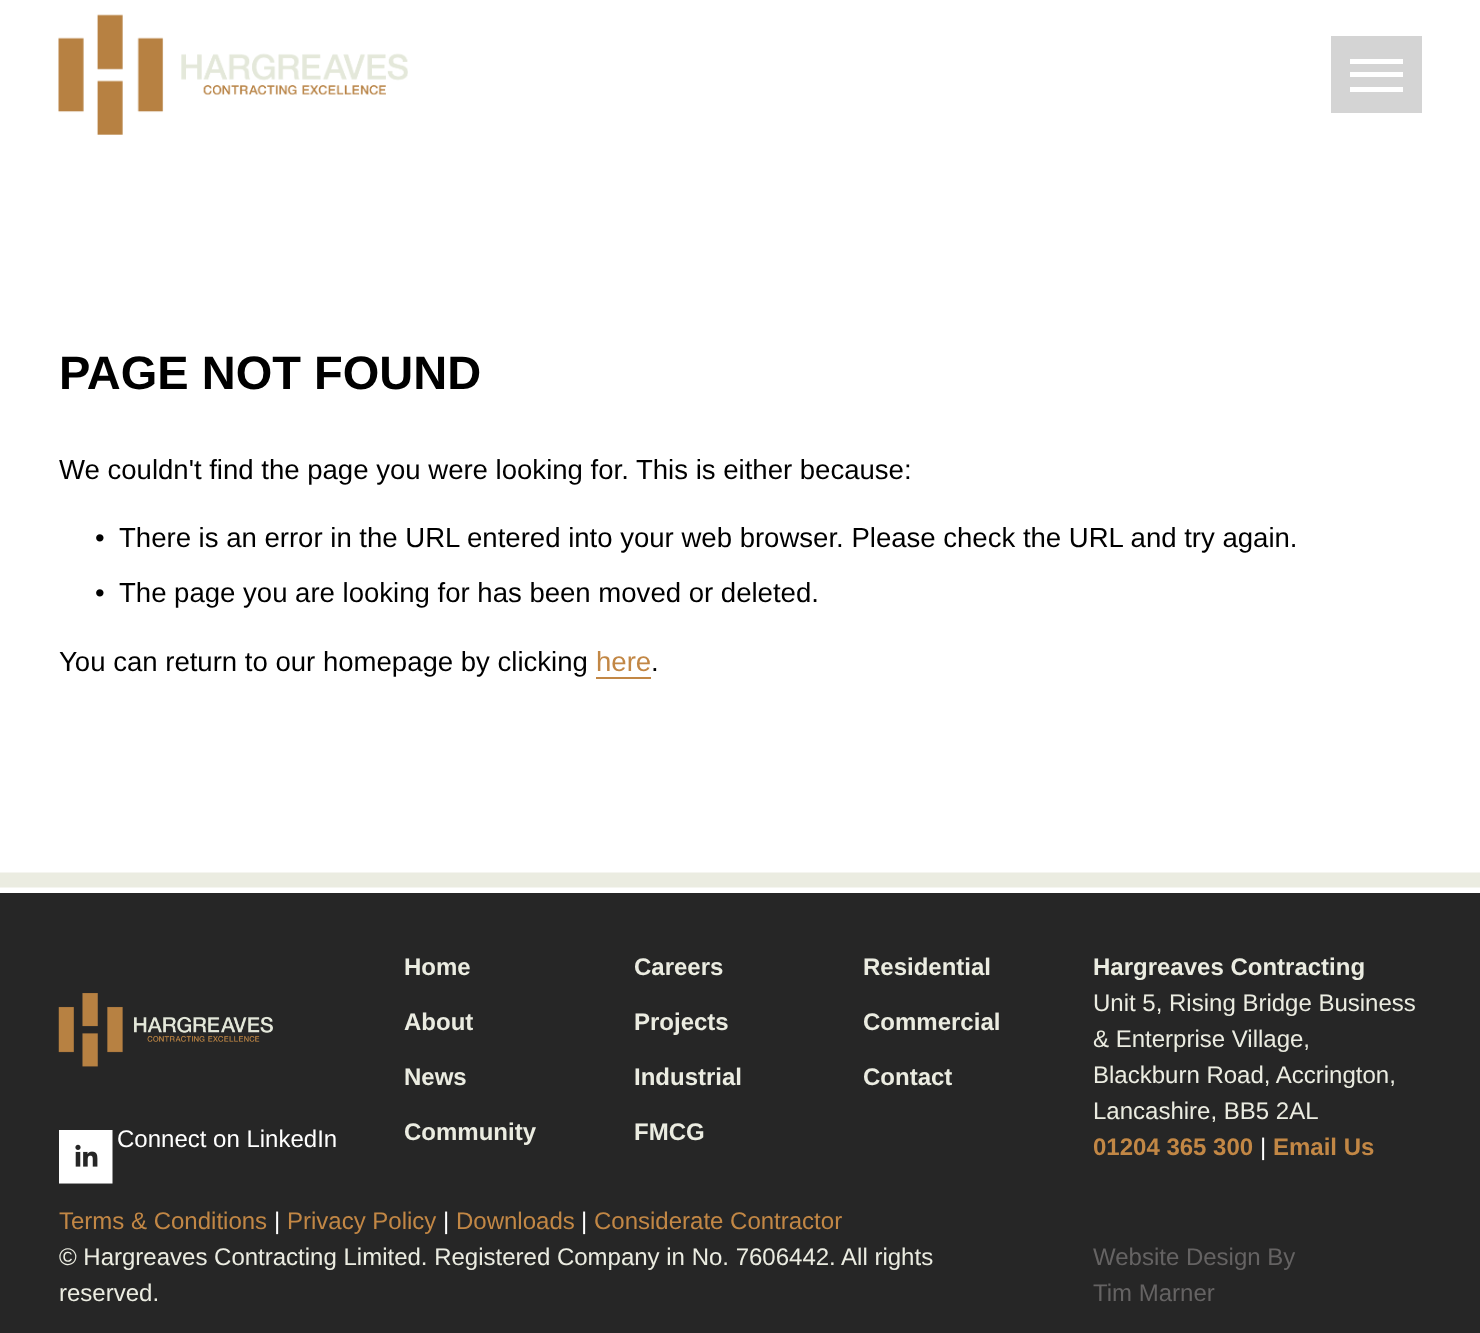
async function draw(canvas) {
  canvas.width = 1480;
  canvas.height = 1333;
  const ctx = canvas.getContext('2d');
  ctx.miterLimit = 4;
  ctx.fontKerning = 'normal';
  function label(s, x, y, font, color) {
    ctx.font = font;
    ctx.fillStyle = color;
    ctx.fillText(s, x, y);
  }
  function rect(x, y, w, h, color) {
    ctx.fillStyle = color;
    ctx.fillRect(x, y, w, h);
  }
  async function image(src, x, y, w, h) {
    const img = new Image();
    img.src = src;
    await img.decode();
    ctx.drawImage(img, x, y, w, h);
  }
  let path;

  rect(0, 0, 1480, 1333, '#fff');
  await image('assets/img1.png', 58, 14, 350, 121);
  rect(1331, 36, 91, 77, '#d4d4d4');
  rect(1350, 59, 53, 5, '#fff');
  rect(1350, 72, 53, 5, '#fff');
  rect(1350, 87, 53, 5, '#fff');
  label('PAGE NOT FOUND', 59, 389, 'bold 47px Liberation Sans', '#000');
  label('We couldn\'t find the page you were looking for. This is either because:', 59, 479, '27.55px Liberation Sans', '#000');
  label('•', 95, 547, '27.55px Liberation Sans', '#000');
  label('There is an error in the URL entered into your web browser. Please check the URL and try again.', 119, 547, '27.55px Liberation Sans', '#000');
  label('•', 95, 602, '27.55px Liberation Sans', '#000');
  label('The page you are looking for has been moved or deleted.', 119, 602, '27.55px Liberation Sans', '#000');
  label('You can return to our homepage by clicking', 59, 671, '27.55px Liberation Sans', '#000');
  label('here', 596, 671, '27.55px Liberation Sans', '#c28745');
  rect(596, 677, 55, 2, '#c28745');
  label('.', 651, 671, '27.55px Liberation Sans', '#000');
  path = new Path2D('M-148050 440V1320M0 880H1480.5');
  ctx.strokeStyle = '#ebece1';
  ctx.lineWidth = 15;
  ctx.lineCap = 'square';
  ctx.stroke(path);
  rect(0, 893, 1480, 440, '#262626');
  label('Home', 404, 975, 'bold 24px Liberation Sans', '#ebece1');
  label('Careers', 634, 975, 'bold 24px Liberation Sans', '#ebece1');
  label('Residential', 863, 975, 'bold 24px Liberation Sans', '#ebece1');
  label('Hargreaves Contracting', 1093, 975, 'bold 24px Liberation Sans', '#ebece1');
  label('Unit 5, Rising Bridge Business', 1093, 1011, '24px Liberation Sans', '#ebece1');
  label('& Enterprise Village,', 1093, 1047, '24px Liberation Sans', '#ebece1');
  label('Blackburn Road, Accrington,', 1093, 1083, '24px Liberation Sans', '#ebece1');
  label('Lancashire, BB5 2AL', 1093, 1119, '24px Liberation Sans', '#ebece1');
  label('01204 365 300', 1093, 1155, 'bold 24px Liberation Sans', '#c28745');
  label('|', 1260, 1155, '24px Liberation Sans', '#fff');
  label('Email Us', 1273, 1155, 'bold 24px Liberation Sans', '#c28745');
  await image('assets/img2.png', 58, 993, 215, 74);
  label('About', 404, 1030, 'bold 24px Liberation Sans', '#ebece1');
  label('Projects', 634, 1030, 'bold 24px Liberation Sans', '#ebece1');
  label('Commercial', 863, 1030, 'bold 24px Liberation Sans', '#ebece1');
  label('News', 404, 1085, 'bold 24px Liberation Sans', '#ebece1');
  label('Industrial', 634, 1085, 'bold 24px Liberation Sans', '#ebece1');
  label('Contact', 863, 1085, 'bold 24px Liberation Sans', '#ebece1');
  await image('assets/img3.png', 59, 1130, 54, 54);
  label('Connect on LinkedIn', 117, 1147, '24px Liberation Sans', '#fff');
  label('Community', 404, 1140, 'bold 24px Liberation Sans', '#ebece1');
  label('FMCG', 634, 1140, 'bold 24px Liberation Sans', '#ebece1');
  label('Terms & Conditions', 59, 1229, '24px Liberation Sans', '#c28745');
  label('|', 274, 1229, '24px Liberation Sans', '#fff');
  label('Privacy Policy', 287, 1229, '24px Liberation Sans', '#c28745');
  label('|', 443, 1229, '24px Liberation Sans', '#fff');
  label('Downloads', 456, 1229, '24px Liberation Sans', '#c28745');
  label('|', 581, 1229, '24px Liberation Sans', '#fff');
  label('Considerate Contractor', 594, 1229, '24px Liberation Sans', '#c28745');
  label('© Hargreaves Contracting Limited. Registered Company in No. 7606442. All rights', 59, 1265, '24px Liberation Sans', '#ebece1');
  label('reserved.', 59, 1301, '24px Liberation Sans', '#ebece1');
  label('Website Design By', 1093, 1265, '24px Liberation Sans', '#656363');
  label('Tim Marner', 1093, 1301, '24px Liberation Sans', '#656363');
}

draw(document.querySelector('canvas'));
